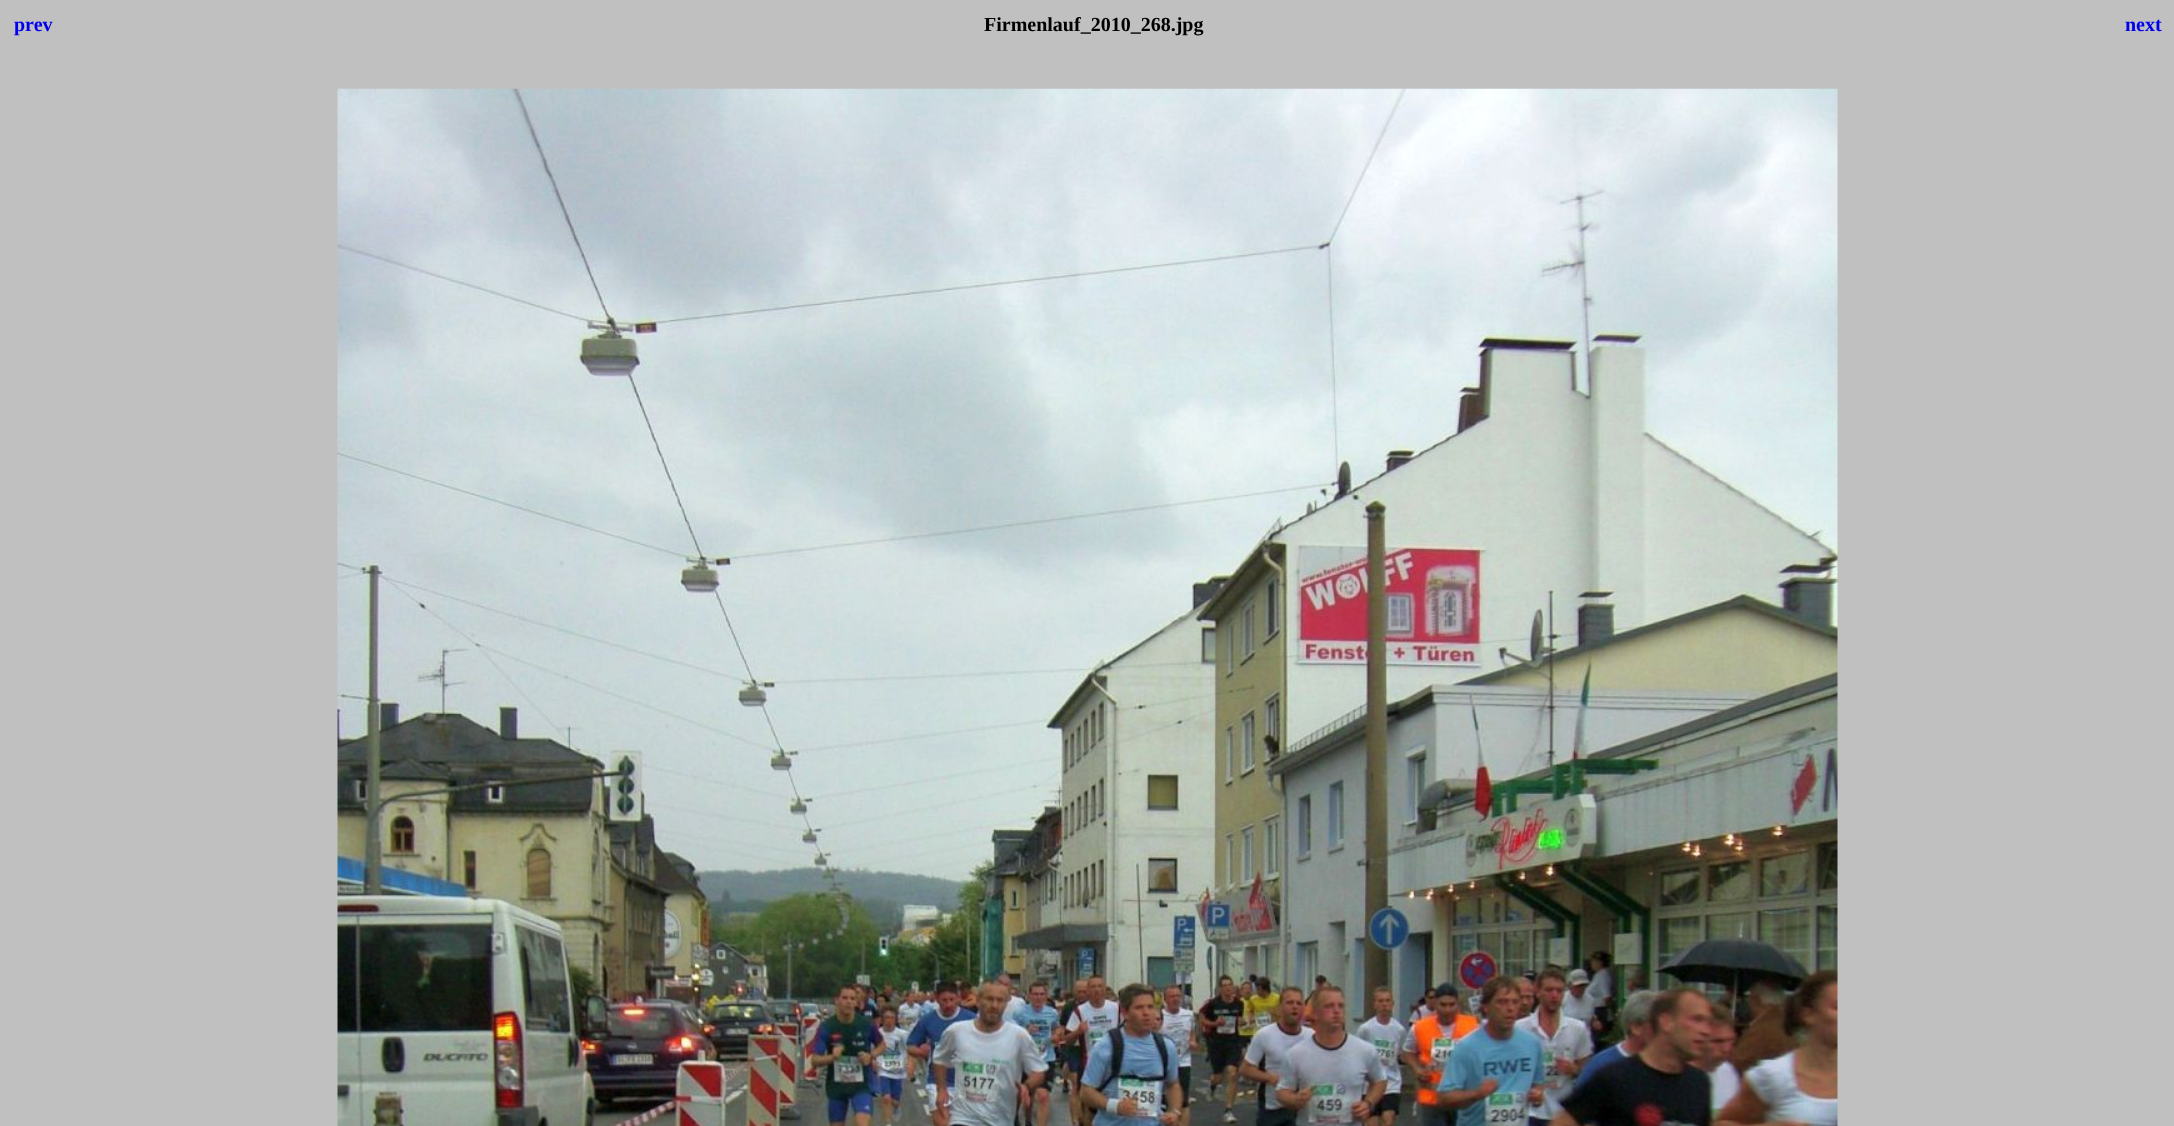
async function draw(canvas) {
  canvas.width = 2174;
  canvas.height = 1126;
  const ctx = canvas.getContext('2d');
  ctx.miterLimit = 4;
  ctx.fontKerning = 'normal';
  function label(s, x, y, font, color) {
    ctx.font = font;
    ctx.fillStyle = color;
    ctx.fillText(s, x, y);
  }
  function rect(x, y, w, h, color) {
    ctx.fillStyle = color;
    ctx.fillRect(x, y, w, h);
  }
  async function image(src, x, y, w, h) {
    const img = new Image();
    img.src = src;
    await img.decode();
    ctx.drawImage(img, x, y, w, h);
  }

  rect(0, 0, 2174, 1126, '#c0c0c0');
  label('prev', 14, 31, 'bold 20px Liberation Serif', '#00e');
  label('Firmenlauf_2010_268.jpg', 984, 31, 'bold 20px Liberation Serif', '#000');
  label('next', 2125, 31, 'bold 20px Liberation Serif', '#00e');
  await image('assets/img1.png', 337, 88, 1501, 1038);
}

draw(document.querySelector('canvas'));
